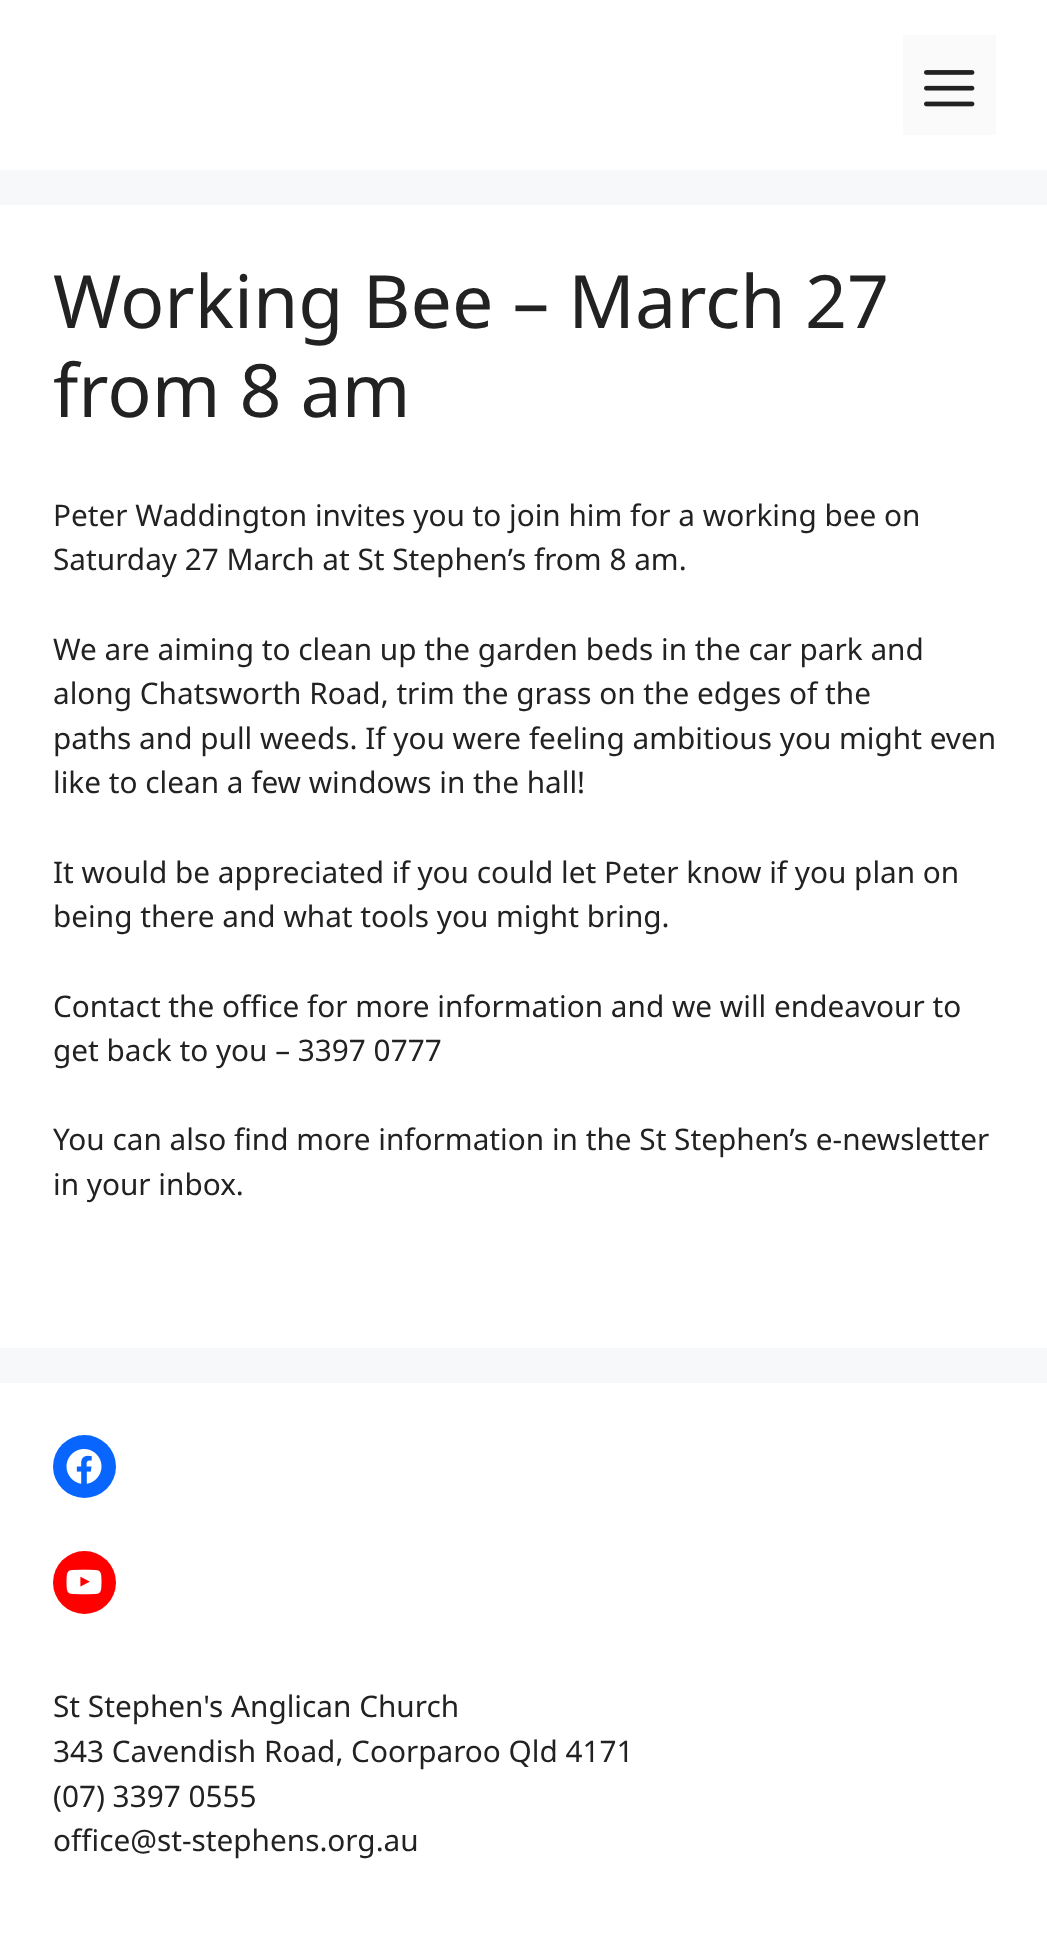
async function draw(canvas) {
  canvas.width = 1047;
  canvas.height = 1951;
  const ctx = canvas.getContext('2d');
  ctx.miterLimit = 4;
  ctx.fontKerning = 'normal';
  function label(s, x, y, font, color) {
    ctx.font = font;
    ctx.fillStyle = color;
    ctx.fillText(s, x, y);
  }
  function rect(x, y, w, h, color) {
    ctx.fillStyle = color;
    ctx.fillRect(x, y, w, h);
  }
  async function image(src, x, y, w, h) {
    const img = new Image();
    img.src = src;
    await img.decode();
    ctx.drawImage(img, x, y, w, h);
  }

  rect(0, 0, 1047, 1951, '#f7f8f9');
  rect(0, 0, 1047, 170, '#fff');
  rect(903, 35, 93, 100, '#fafafa');
  await image('assets/img1.png', 924, 70, 51, 37);
  rect(0, 205, 1047, 1143, '#fff');
  label('Working Bee – March 27', 53, 328, '73.5px Noto Sans', '#222');
  label('from 8 am', 53, 417, '73.5px Noto Sans', '#222');
  label('Peter Waddington invites you to join him for a working bee on', 53, 526, '29.75px Noto Sans', '#222');
  label('Saturday 27 March at St Stephen’s from 8 am.', 53, 570, '29.75px Noto Sans', '#222');
  label('We are aiming to clean up the garden beds in the car park and', 53, 660, '29.75px Noto Sans', '#222');
  label('along Chatsworth Road, trim the grass on the edges of the', 53, 704, '29.75px Noto Sans', '#222');
  label('paths and pull weeds. If you were feeling ambitious you might even', 53, 749, '29.75px Noto Sans', '#222');
  label('like to clean a few windows in the hall!', 53, 793, '29.75px Noto Sans', '#222');
  label('It would be appreciated if you could let Peter know if you plan on', 53, 883, '29.75px Noto Sans', '#222');
  label('being there and what tools you might bring.', 53, 927, '29.75px Noto Sans', '#222');
  label('Contact the office for more information and we will endeavour to', 53, 1017, '29.75px Noto Sans', '#222');
  label('get back to you – 3397 0777', 53, 1061, '29.75px Noto Sans', '#222');
  label('You can also find more information in the St Stephen’s e-newsletter', 53, 1150, '29.75px Noto Sans', '#222');
  label('in your inbox.', 53, 1195, '29.75px Noto Sans', '#222');
  rect(0, 1383, 1047, 568, '#fff');
  ctx.fillStyle = '#0866ff';
  ctx.beginPath();
  ctx.arc(84.5, 1466.5, 31.5, 0, 2 * Math.PI);
  ctx.fill();
  await image('assets/img2.png', 66, 1449, 36, 35);
  ctx.fillStyle = '#f00';
  ctx.beginPath();
  ctx.arc(84.5, 1582.5, 31.5, 0, 2 * Math.PI);
  ctx.fill();
  await image('assets/img3.png', 66, 1569, 36, 26);
  label('St Stephen\'s Anglican Church', 53, 1717, '29.75px Noto Sans', '#222');
  label('343 Cavendish Road, Coorparoo Qld 4171', 53, 1762, '29.75px Noto Sans', '#222');
  label('(07) 3397 0555', 53, 1807, '29.75px Noto Sans', '#222');
  label('office@st-stephens.org.au', 53, 1851, '29.75px Noto Sans', '#222');
}

draw(document.querySelector('canvas'));
